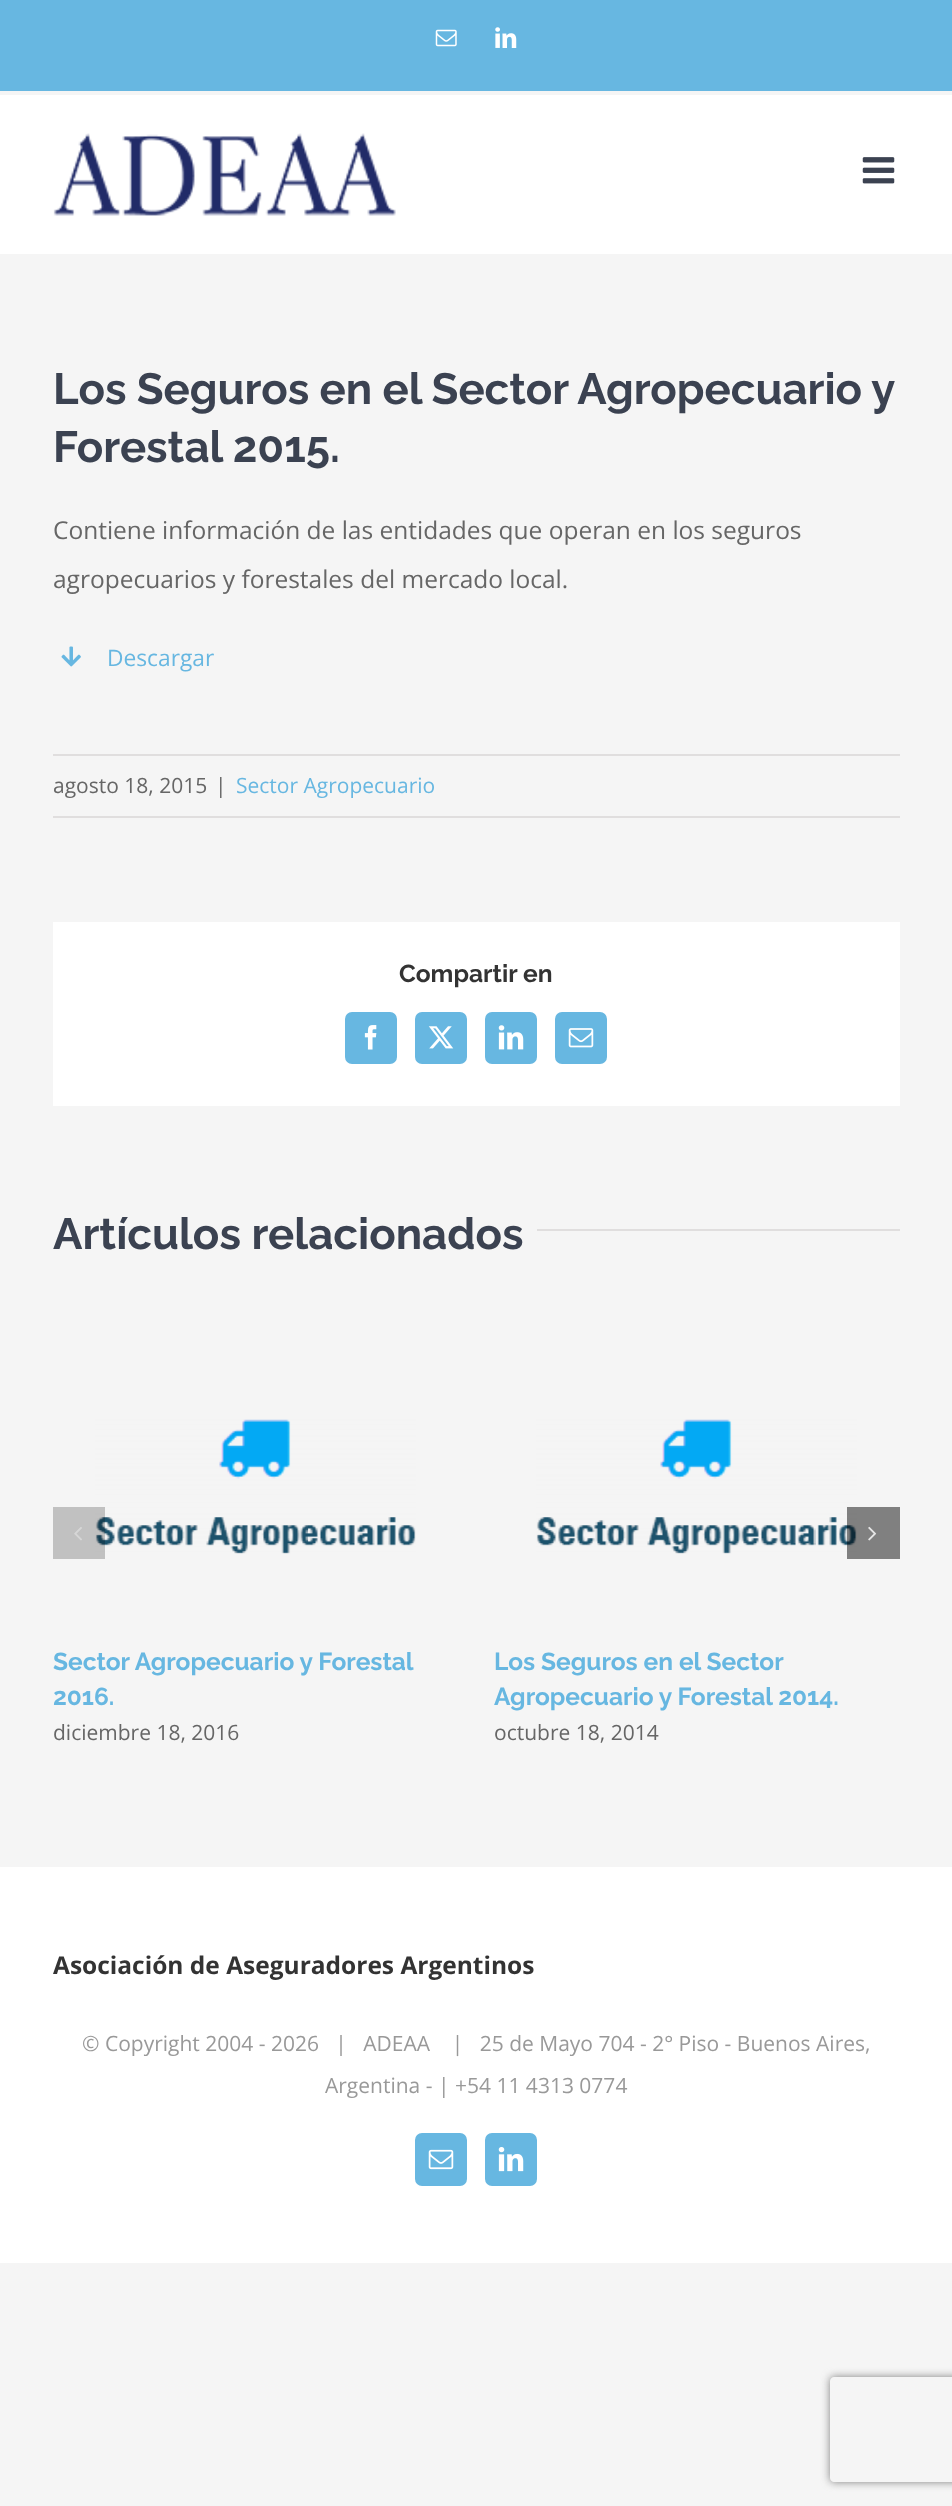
async function draw(canvas) {
  canvas.width = 952;
  canvas.height = 2506;
  const ctx = canvas.getContext('2d');
  ctx.miterLimit = 4;
  ctx.fontKerning = 'normal';
  function label(s, x, y, font, color) {
    ctx.font = font;
    ctx.fillStyle = color;
    ctx.fillText(s, x, y);
  }
  function rect(x, y, w, h, color) {
    ctx.fillStyle = color;
    ctx.fillRect(x, y, w, h);
  }
  async function image(src, x, y, w, h) {
    const img = new Image();
    img.src = src;
    await img.decode();
    ctx.drawImage(img, x, y, w, h);
  }
  let path;

  rect(0, 0, 952, 2506, '#f5f5f5');
  rect(0, 0, 952, 91, '#67b7e1');
  await image('assets/img1.png', 435, 29, 22, 18);
  await image('assets/img2.png', 495, 27, 22, 21);
  rect(0, 95, 952, 159, '#fff');
  await image('assets/img3.png', 53, 133, 343, 83);
  await image('assets/img4.png', 862, 157, 33, 27);
  ctx.wordSpacing = '-0.25px';
  label('Los Seguros en el Sector Agropecuario y', 53, 404, '100 43.75px Raleway', '#3b4251');
  ctx.wordSpacing = '0px';
  label('Forestal 2015.', 53, 462, '100 43.75px Raleway', '#3b4251');
  label('Contiene información de las entidades que operan en los seguros', 53, 539, '24.5px Open Sans', '#666');
  label('agropecuarios y forestales del mercado local.', 53, 588, '24.5px Open Sans', '#666');
  await image('assets/img5.png', 61, 646, 20, 21);
  label('Descargar', 107, 666, '22.75px Open Sans', '#67b7e1');
  rect(53, 754, 847, 2, '#e0dede');
  rect(53, 816, 847, 2, '#e0dede');
  label('agosto 18, 2015', 53, 793, '21px Open Sans', '#666');
  label('|', 215, 793, '21px Open Sans', '#666');
  label('Sector Agropecuario', 236, 793, '21px Open Sans', '#67b7e1');
  rect(53, 922, 847, 184, '#fff');
  label('Compartir en', 399, 982, '100 24.5px Raleway', '#333');
  ctx.fillStyle = '#67b7e1';
  ctx.beginPath();
  ctx.roundRect(346, 1013, 50, 50, 6);
  ctx.fill();
  ctx.strokeStyle = '#67b7e1';
  ctx.lineWidth = 2;
  ctx.stroke();
  await image('assets/img6.png', 364, 1025, 13, 25);
  ctx.beginPath();
  ctx.roundRect(416, 1013, 50, 50, 6);
  ctx.fill();
  ctx.stroke();
  await image('assets/img7.png', 428, 1026, 26, 23);
  ctx.beginPath();
  ctx.roundRect(486, 1013, 50, 50, 6);
  ctx.fill();
  ctx.stroke();
  await image('assets/img8.png', 498, 1025, 26, 25);
  ctx.beginPath();
  ctx.roundRect(556, 1013, 50, 50, 6);
  ctx.fill();
  ctx.stroke();
  await image('assets/img9.png', 568, 1028, 26, 20);
  label('Artículos relacionados', 53, 1249, '100 43.75px Raleway', '#3b4251');
  rect(537, 1229, 363, 2, '#e0dede');
  await image('assets/img12.png', 95, 1419, 321, 135);
  rect(53, 1507, 52, 52, '#00000036');
  await image('assets/img10.png', 74, 1527, 8, 14);
  await image('assets/img13.png', 536, 1419, 321, 135);
  rect(847, 1507, 53, 52, '#0000007a');
  await image('assets/img11.png', 868, 1526, 9, 15);
  label('Sector Agropecuario y Forestal', 53, 1670, '100 24.5px Raleway', '#67b7e1');
  label('2016.', 53, 1705, '100 24.5px Raleway', '#67b7e1');
  label('diciembre 18, 2016', 53, 1740, '21px Open Sans', '#666');
  label('Los Seguros en el Sector', 494, 1670, '100 24.5px Raleway', '#67b7e1');
  label('Agropecuario y Forestal 2014.', 494, 1705, '100 24.5px Raleway', '#67b7e1');
  label('octubre 18, 2014', 494, 1740, '21px Open Sans', '#666');
  rect(0, 1867, 952, 396, '#fff');
  label('Asociación de Aseguradores Argentinos', 53, 1974, 'bold 24.5px Open Sans', '#333');
  label('© Copyright 2004 - 2026   |   ADEAA    |   25 de Mayo 704 - 2° Piso - Buenos Aires,', 82, 2051, '21px Open Sans', '#999');
  label('Argentina - | +54 11 4313 0774', 325, 2093, '21px Open Sans', '#999');
  ctx.fillStyle = '#67b7e1';
  ctx.beginPath();
  ctx.roundRect(416, 2134, 50, 51, 6);
  ctx.fill();
  ctx.stroke();
  await image('assets/img14.png', 428, 2149, 26, 21);
  ctx.beginPath();
  ctx.roundRect(486, 2134, 50, 51, 6);
  ctx.fill();
  ctx.stroke();
  await image('assets/img15.png', 498, 2147, 26, 25);
  ctx.save();
  path = new Path2D('M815 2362H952V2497H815ZM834 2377H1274C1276 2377 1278 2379 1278 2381V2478C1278 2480 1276 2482 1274 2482H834C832 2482 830 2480 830 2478V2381C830 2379 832 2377 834 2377Z');
  ctx.clip(path, 'evenodd');
  ctx.fillStyle = '#808080';
  ctx.filter = 'blur(4.5px)';
  ctx.beginPath();
  ctx.roundRect(830, 2377, 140, 105, 4);
  ctx.fill();
  ctx.filter = 'none';
  ctx.restore();
}

draw(document.querySelector('canvas'));
